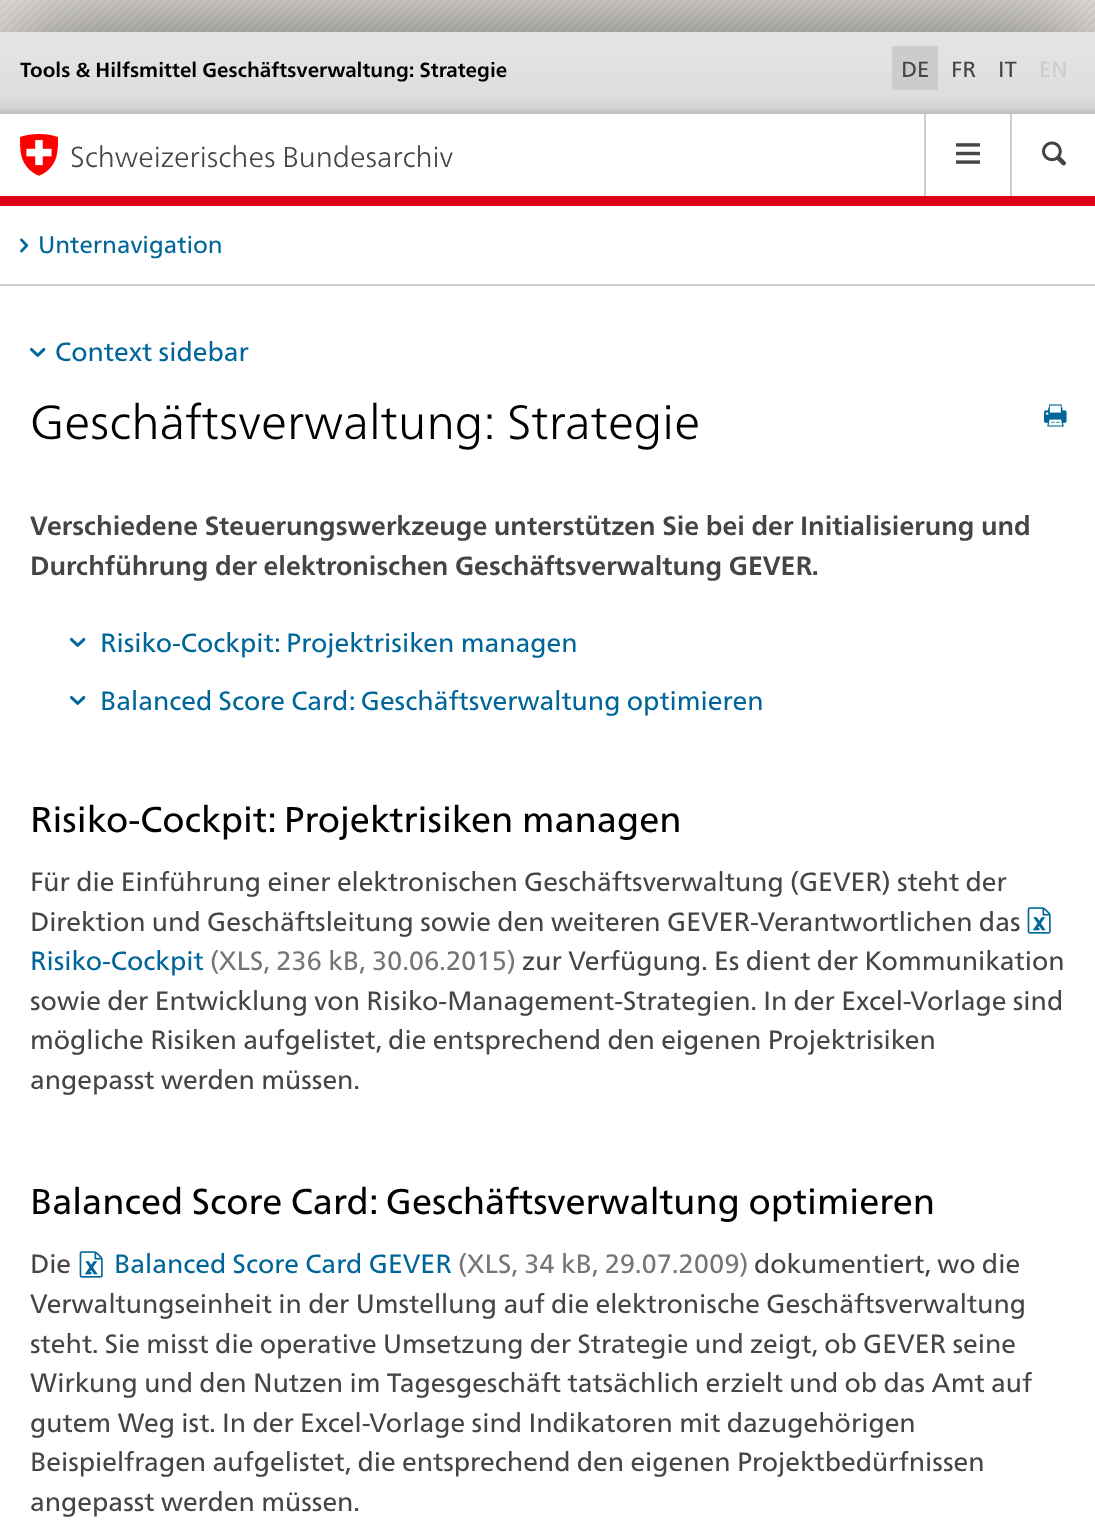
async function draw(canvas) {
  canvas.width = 1095;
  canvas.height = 1523;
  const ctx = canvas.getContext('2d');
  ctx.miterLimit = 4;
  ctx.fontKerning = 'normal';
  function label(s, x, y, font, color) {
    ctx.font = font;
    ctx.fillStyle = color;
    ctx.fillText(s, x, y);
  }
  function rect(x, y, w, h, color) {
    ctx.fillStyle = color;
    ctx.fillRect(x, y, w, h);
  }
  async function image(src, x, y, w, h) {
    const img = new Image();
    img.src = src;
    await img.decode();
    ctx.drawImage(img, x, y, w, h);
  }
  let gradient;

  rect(0, 0, 1095, 1523, '#fff');
  await image('assets/img1.png', 0, 0, 1095, 32);
  ctx.fillStyle = '#00000099';
  ctx.filter = 'blur(60px)';
  ctx.beginPath();
  ctx.rect(0, 32, 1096, 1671);
  ctx.fill();
  ctx.filter = 'none';
  rect(0, 114, 1095, 1409, '#fff');
  gradient = ctx.createLinearGradient(548, 32, 548, 114);
  gradient.addColorStop(0, '#e4e4e4');
  gradient.addColorStop(0.39, '#e2e2e2');
  gradient.addColorStop(0.79, '#ddd');
  gradient.addColorStop(0.91, '#d5d5d5');
  gradient.addColorStop(0.95, '#cfcfcf');
  gradient.addColorStop(0.99, '#bebebe');
  ctx.fillStyle = gradient;
  ctx.fillRect(0, 32, 1095, 82);
  label('Tools & Hilfsmittel Geschäftsverwaltung: Strategie', 20, 77, 'bold 20.4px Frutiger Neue', '#000');
  rect(892, 46, 46, 44, '#ccc');
  label('DE', 901, 77, '22px "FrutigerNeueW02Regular"', '#454545');
  label('FR', 951, 77, '22px "FrutigerNeueW02Regular"', '#454545');
  label('IT', 998, 77, '22px "FrutigerNeueW02Regular"', '#454545');
  label('EN', 1039, 77, '22px "FrutigerNeueW02Regular"', '#ccc');
  rect(0, 196, 1095, 10, '#dc0018');
  await image('assets/img2.png', 20, 134, 38, 42);
  label('Schweizerisches Bundesarchiv', 70, 167, '300 28.75px Frutiger Neue', '#454545');
  rect(924, 114, 2, 82, '#ccc');
  await image('assets/img3.png', 956, 143, 24, 21);
  rect(1010, 114, 2, 82, '#ccc');
  await image('assets/img4.png', 1042, 141, 24, 25);
  rect(0, 284, 1095, 2, '#ccc');
  await image('assets/img5.png', 20, 238, 9, 15);
  label('Unternavigation', 38, 253, '24px "FrutigerNeueW02Regular"', '#069');
  await image('assets/img6.png', 30, 347, 16, 10);
  label('Context sidebar', 55, 361, '26.4px "FrutigerNeueW02Regular"', '#069');
  label('Geschäftsverwaltung: Strategie', 30, 439, '300 48px Frutiger Neue', '#000');
  await image('assets/img7.png', 1044, 404, 23, 23);
  label('Verschiedene Steuerungswerkzeuge unterstützen Sie bei der Initialisierung und', 30, 535, 'bold 26.4px Frutiger Neue', '#454545');
  label('Durchführung der elektronischen Geschäftsverwaltung GEVER.', 30, 575, 'bold 26.4px Frutiger Neue', '#454545');
  await image('assets/img6.png', 70, 637, 16, 10);
  label('Risiko-Cockpit: Projektrisiken managen', 100, 652, '26.4px "FrutigerNeueW02Regular"', '#069');
  await image('assets/img6.png', 70, 695, 16, 10);
  label('Balanced Score Card: Geschäftsverwaltung optimieren', 100, 710, '26.4px "FrutigerNeueW02Regular"', '#069');
  label('Risiko-Cockpit: Projektrisiken managen', 30, 832, '36px "FrutigerNeueW02Regular"', '#000');
  label('Für die Einführung einer elektronischen Geschäftsverwaltung (GEVER) steht der', 30, 891, '26.4px "FrutigerNeueW02Regular"', '#454545');
  label('Direktion und Geschäftsleitung sowie den weiteren GEVER-Verantwortlichen das', 30, 931, '26.4px "FrutigerNeueW02Regular"', '#454545');
  await image('assets/img8.png', 1027, 907, 24, 27);
  label('Risiko-Cockpit', 30, 970, '26.4px "FrutigerNeueW02Regular"', '#069');
  label('(XLS, 236 kB, 30.06.2015)', 210, 970, '26.4px "FrutigerNeueW02Regular"', '#757575');
  label('zur Verfügung. Es dient der Kommunikation', 522, 970, '26.4px "FrutigerNeueW02Regular"', '#454545');
  label('sowie der Entwicklung von Risiko-Management-Strategien. In der Excel-Vorlage sind', 30, 1010, '26.4px "FrutigerNeueW02Regular"', '#454545');
  label('mögliche Risiken aufgelistet, die entsprechend den eigenen Projektrisiken', 30, 1049, '26.4px "FrutigerNeueW02Regular"', '#454545');
  label('angepasst werden müssen.', 30, 1089, '26.4px "FrutigerNeueW02Regular"', '#454545');
  label('Balanced Score Card: Geschäftsverwaltung optimieren', 30, 1214, '36px "FrutigerNeueW02Regular"', '#000');
  label('Die', 30, 1273, '26.4px "FrutigerNeueW02Regular"', '#454545');
  await image('assets/img8.png', 79, 1251, 24, 27);
  label('Balanced Score Card GEVER', 114, 1273, '26.4px "FrutigerNeueW02Regular"', '#069');
  label('(XLS, 34 kB, 29.07.2009)', 458, 1273, '26.4px "FrutigerNeueW02Regular"', '#757575');
  label('dokumentiert, wo die', 754, 1273, '26.4px "FrutigerNeueW02Regular"', '#454545');
  label('Verwaltungseinheit in der Umstellung auf die elektronische Geschäftsverwaltung', 30, 1313, '26.4px "FrutigerNeueW02Regular"', '#454545');
  label('steht. Sie misst die operative Umsetzung der Strategie und zeigt, ob GEVER seine', 30, 1353, '26.4px "FrutigerNeueW02Regular"', '#454545');
  label('Wirkung und den Nutzen im Tagesgeschäft tatsächlich erzielt und ob das Amt auf', 30, 1392, '26.4px "FrutigerNeueW02Regular"', '#454545');
  label('gutem Weg ist. In der Excel-Vorlage sind Indikatoren mit dazugehörigen', 30, 1432, '26.4px "FrutigerNeueW02Regular"', '#454545');
  label('Beispielfragen aufgelistet, die entsprechend den eigenen Projektbedürfnissen', 30, 1471, '26.4px "FrutigerNeueW02Regular"', '#454545');
  label('angepasst werden müssen.', 30, 1511, '26.4px "FrutigerNeueW02Regular"', '#454545');
}

draw(document.querySelector('canvas'));
